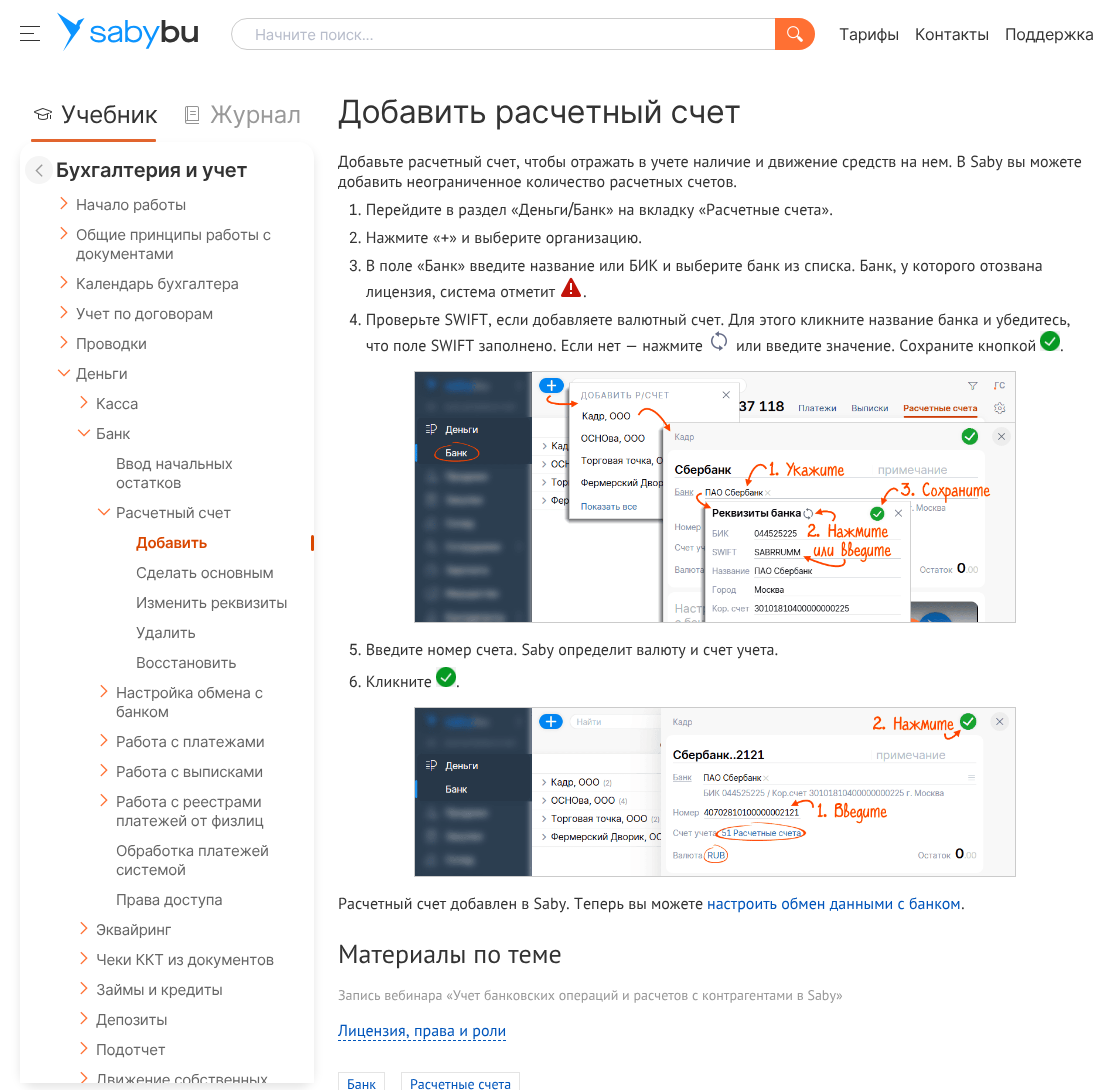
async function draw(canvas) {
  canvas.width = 1114;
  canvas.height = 1090;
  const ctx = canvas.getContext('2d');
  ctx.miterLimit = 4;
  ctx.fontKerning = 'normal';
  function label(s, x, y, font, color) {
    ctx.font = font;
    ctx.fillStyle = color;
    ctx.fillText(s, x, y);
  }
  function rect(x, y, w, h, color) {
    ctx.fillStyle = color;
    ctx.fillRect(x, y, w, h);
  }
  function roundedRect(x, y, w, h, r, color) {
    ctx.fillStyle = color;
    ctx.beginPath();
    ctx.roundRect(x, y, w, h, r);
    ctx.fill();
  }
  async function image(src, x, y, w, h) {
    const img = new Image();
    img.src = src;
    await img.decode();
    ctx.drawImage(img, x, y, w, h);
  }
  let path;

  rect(0, 0, 1114, 1090, '#fff');
  rect(20, 26, 20, 1, '#333');
  rect(20, 33, 14, 1, '#333');
  rect(20, 40, 20, 1, '#333');
  ctx.fillStyle = '#0c94ff';
  path = new Path2D('M71 35L63 51.5L80 28L79.5 25.5L84.5 18L78 20.5V21V20.5L76 25L57 12.5Z');
  ctx.fill(path);
  ctx.letterSpacing = '-0.5px';
  label('saby', 89, 42, '30px Maison Neue', '#0c94ff');
  label('bu', 160, 42, '600 30px Maison Neue', '#333');
  ctx.beginPath();
  ctx.roundRect(231.5, 18.5, 575, 31, 15.5);
  ctx.strokeStyle = '#ccc';
  ctx.stroke();
  ctx.letterSpacing = '-0.25px';
  label('Начните поиск...', 255, 40, '15px Inter', '#b8bdcb');
  ctx.fillStyle = '#ff7033';
  ctx.beginPath();
  ctx.roundRect(775, 18, 40, 32, [0, 16, 16, 0]);
  ctx.fill();
  await image('assets/img1.png', 787, 26, 16, 16);
  label('Тарифы', 839, 40, '16px Inter', '#333');
  label('Контакты', 915, 40, '16px Inter', '#333');
  label('Поддержка', 1005, 40, '16px Inter', '#333');
  await image('assets/img2.png', 34, 108, 18, 12);
  label('Учебник', 61, 123, '24px Inter', '#333');
  roundedRect(31, 139, 125, 3, 1, '#e4662f');
  await image('assets/img3.png', 185, 106, 14, 18);
  label('Журнал', 210, 123, '24px Inter', '#999');
  ctx.save();
  path = new Path2D('M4 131H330V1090H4ZM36 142H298C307 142 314 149 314 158V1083H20V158C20 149 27 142 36 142Z');
  ctx.clip(path, 'evenodd');
  ctx.fillStyle = '#0000001a';
  ctx.filter = 'blur(5px)';
  ctx.beginPath();
  ctx.roundRect(20, 147, 294, 941, 16);
  ctx.fill();
  ctx.filter = 'none';
  ctx.restore();
  ctx.fillStyle = '#f5f5f5';
  ctx.beginPath();
  ctx.arc(39, 170, 14, 0, 2 * Math.PI);
  ctx.fill();
  await image('assets/img4.png', 35, 164, 8, 13);
  label('Бухгалтерия и учет', 56, 177, '600 20px Inter', '#333');
  await image('assets/img5.png', 60, 196, 8, 14);
  label('Начало работы', 76, 210, '15px Inter', '#666');
  await image('assets/img5.png', 60, 226, 8, 14);
  label('Общие принципы работы с', 76, 240, '15px Inter', '#666');
  label('документами', 76, 259, '15px Inter', '#666');
  await image('assets/img5.png', 60, 275, 8, 14);
  label('Календарь бухгалтера', 76, 289, '15px Inter', '#666');
  await image('assets/img5.png', 60, 305, 8, 14);
  label('Учет по договорам', 76, 319, '15px Inter', '#666');
  await image('assets/img5.png', 60, 335, 8, 14);
  label('Проводки', 76, 349, '15px Inter', '#666');
  await image('assets/img6.png', 57, 369, 14, 8);
  label('Деньги', 76, 379, '15px Inter', '#666');
  await image('assets/img5.png', 80, 395, 8, 14);
  label('Касса', 96, 409, '15px Inter', '#666');
  await image('assets/img6.png', 77, 429, 14, 8);
  label('Банк', 96, 439, '15px Inter', '#666');
  label('Ввод начальных', 116, 469, '15px Inter', '#666');
  label('остатков', 116, 488, '15px Inter', '#666');
  await image('assets/img6.png', 97, 508, 14, 8);
  label('Расчетный счет', 116, 518, '15px Inter', '#666');
  label('Добавить', 136, 548, '600 15px Inter', '#d94700');
  roundedRect(311, 535, 3, 16, 1.5, '#d94700');
  label('Сделать основным', 136, 578, '15px Inter', '#666');
  label('Изменить реквизиты', 136, 608, '15px Inter', '#666');
  label('Удалить', 136, 638, '15px Inter', '#666');
  label('Восстановить', 136, 668, '15px Inter', '#666');
  await image('assets/img5.png', 100, 684, 8, 14);
  label('Настройка обмена с', 116, 698, '15px Inter', '#666');
  label('банком', 116, 717, '15px Inter', '#666');
  await image('assets/img5.png', 100, 733, 8, 14);
  label('Работа с платежами', 116, 747, '15px Inter', '#666');
  await image('assets/img5.png', 100, 763, 8, 14);
  label('Работа с выписками', 116, 777, '15px Inter', '#666');
  await image('assets/img5.png', 100, 793, 8, 14);
  label('Работа с реестрами', 116, 807, '15px Inter', '#666');
  label('платежей от физлиц', 116, 826, '15px Inter', '#666');
  label('Обработка платежей', 116, 856, '15px Inter', '#666');
  label('системой', 116, 875, '15px Inter', '#666');
  label('Права доступа', 116, 905, '15px Inter', '#666');
  await image('assets/img5.png', 80, 921, 8, 14);
  label('Эквайринг', 96, 935, '15px Inter', '#666');
  await image('assets/img5.png', 80, 951, 8, 14);
  label('Чеки ККТ из документов', 96, 965, '15px Inter', '#666');
  await image('assets/img5.png', 80, 981, 8, 14);
  label('Займы и кредиты', 96, 995, '15px Inter', '#666');
  await image('assets/img5.png', 80, 1011, 8, 14);
  label('Депозиты', 96, 1025, '15px Inter', '#666');
  await image('assets/img5.png', 80, 1041, 8, 14);
  label('Подотчет', 96, 1055, '15px Inter', '#666');
  await image('assets/img7.png', 80, 1071, 8, 12);
  ctx.save();
  ctx.beginPath();
  ctx.roundRect(20, 142, 294, 941, [16, 16, 0, 0]);
  ctx.clip();
  label('Движение собственных', 96, 1085, '15px Inter', '#666');
  ctx.restore();
  ctx.letterSpacing = '-0.45px';
  label('Добавить расчетный счет', 338, 123, '32px Inter', '#333');
  ctx.letterSpacing = '0px';
  label('Добавьте расчетный счет, чтобы отражать в учете наличие и движение средств на нем. В Saby вы можете', 338, 167, '16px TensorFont', '#333');
  label('добавить неограниченное количество расчетных счетов.', 338, 187, '16px TensorFont', '#333');
  label('1. Перейдите в раздел «Деньги/Банк» на вкладку «Расчетные счета».', 349, 215, '16px TensorFont', '#333');
  label('2. Нажмите «+» и выберите организацию.', 349, 243, '16px TensorFont', '#333');
  label('3. В поле «Банк» введите название или БИК и выберите банк из списка. Банк, у которого отозвана', 349, 271, '16px TensorFont', '#333');
  label('лицензия, система отметит', 366, 297, '16px TensorFont', '#333');
  await image('assets/img8.png', 561, 277, 20, 20);
  label('.', 583, 297, '16px TensorFont', '#333');
  label('4. Проверьте SWIFT, если добавляете валютный счет. Для этого кликните название банка и убедитесь,', 349, 325, '16px TensorFont', '#333');
  label('что поле SWIFT заполнено. Если нет — нажмите', 366, 351, '16px TensorFont', '#333');
  await image('assets/img9.png', 711, 331, 16, 20);
  label('или введите значение. Сохраните кнопкой', 736, 351, '16px TensorFont', '#333');
  await image('assets/img10.png', 1040, 331, 20, 20);
  label('.', 1060, 351, '16px TensorFont', '#333');
  ctx.strokeStyle = '#cbcbcb';
  ctx.strokeRect(414.5, 371.5, 601, 251);
  await image('assets/img11.png', 415, 372, 600, 250);
  label('5. Введите номер счета. Saby определит валюту и счет учета.', 349, 655, '16px TensorFont', '#333');
  label('6. Кликните', 349, 687, '16px TensorFont', '#333');
  await image('assets/img10.png', 436, 667, 20, 20);
  label('.', 456, 687, '16px TensorFont', '#333');
  ctx.strokeRect(414.5, 707.5, 601, 169);
  await image('assets/img12.png', 415, 708, 600, 168);
  label('Расчетный счет добавлен в Saby. Теперь вы можете', 338, 909, '16px TensorFont', '#333');
  label('настроить обмен данными с банком', 707, 909, '16px TensorFont', '#05b');
  label('.', 961, 909, '16px TensorFont', '#333');
  label('Материалы по теме', 338, 963, '26px TensorFont', '#333');
  label('Запись вебинара «Учет банковских операций и расчетов с контрагентами в Saby»', 338, 1000, '14px TensorFont', '#999');
  label('Лицензия, права и роли', 338, 1036, '16px TensorFont', '#05b');
  path = new Path2D('M338 1040.5H506');
  ctx.strokeStyle = '#05b';
  ctx.setLineDash([3, 2]);
  ctx.stroke(path);
  ctx.strokeStyle = '#e4e4e4';
  ctx.setLineDash([]);
  ctx.strokeRect(338.5, 1072.5, 46, 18);
  label('Банк', 347, 1089, '14px TensorFont', '#05b');
  ctx.strokeRect(401.5, 1072.5, 118, 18);
  label('Расчетные счета', 410, 1089, '14px TensorFont', '#05b');
}

draw(document.querySelector('canvas'));
